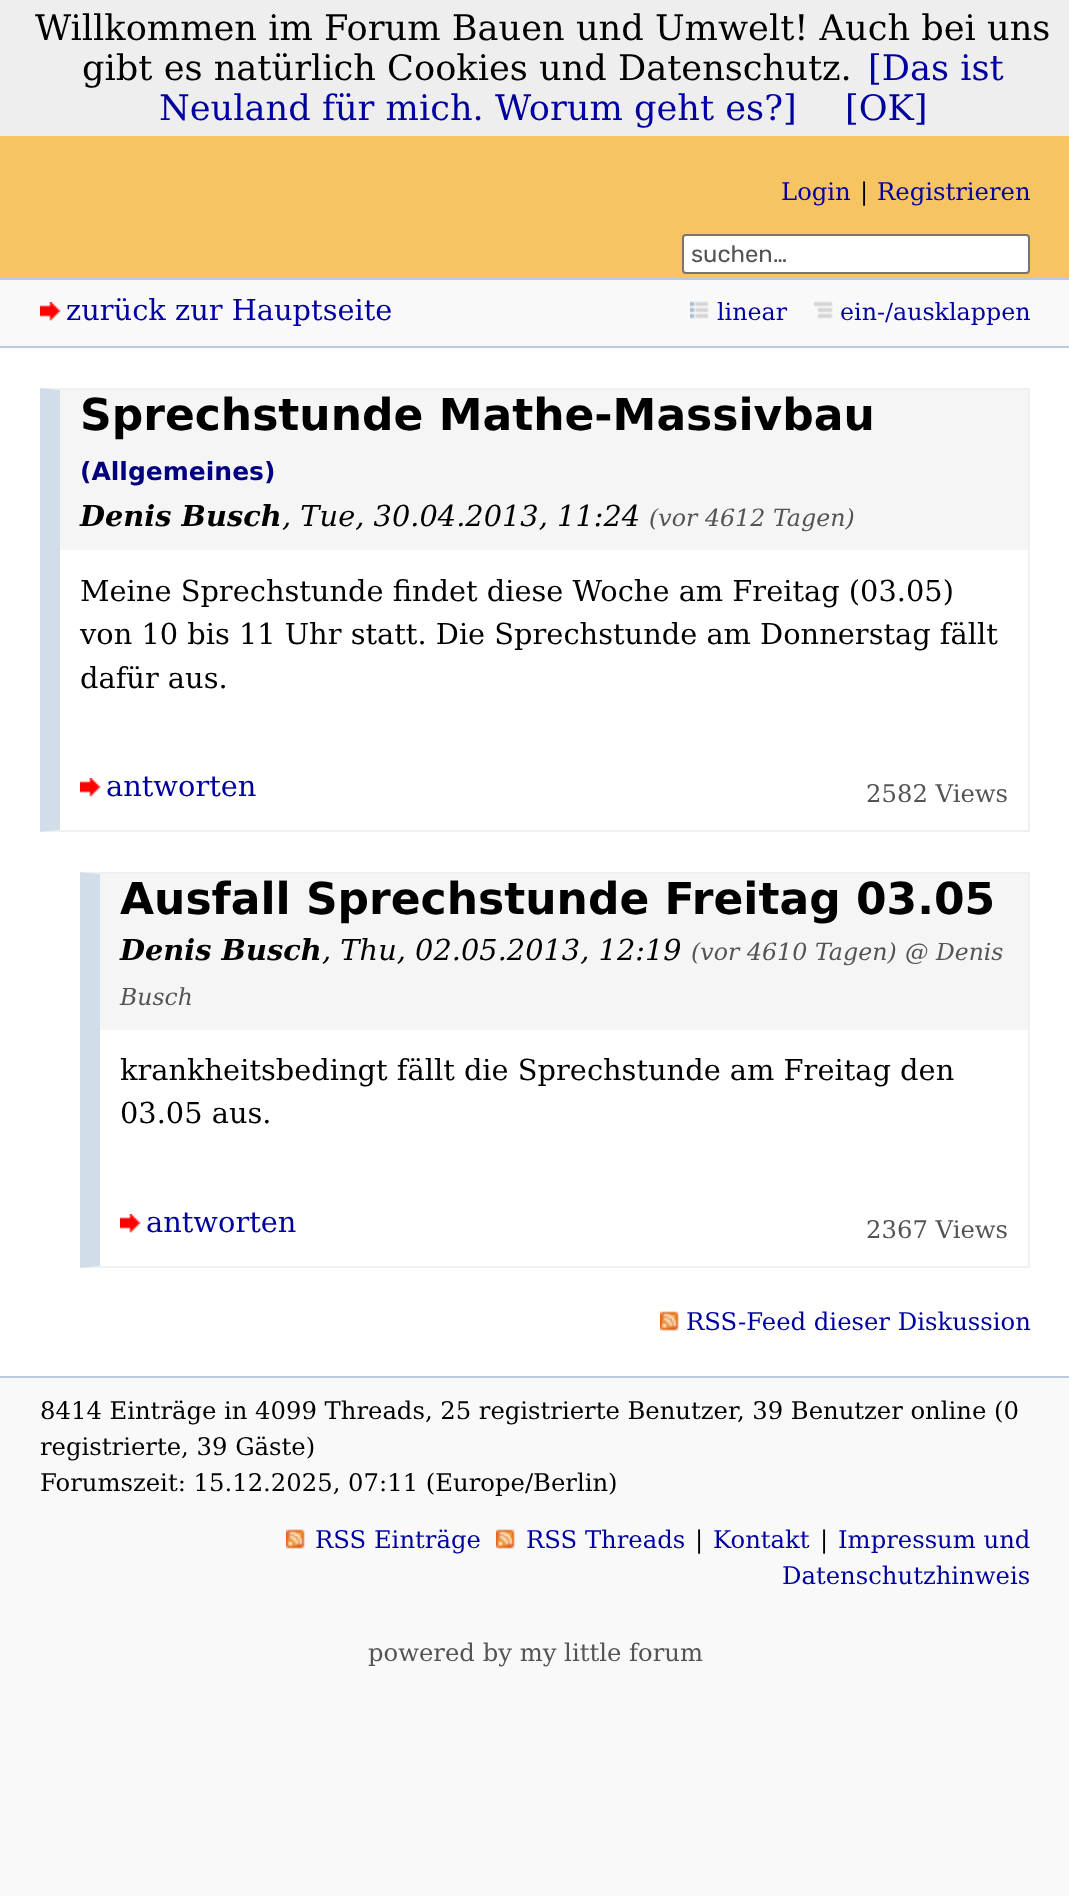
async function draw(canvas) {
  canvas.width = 1069;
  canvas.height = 1896;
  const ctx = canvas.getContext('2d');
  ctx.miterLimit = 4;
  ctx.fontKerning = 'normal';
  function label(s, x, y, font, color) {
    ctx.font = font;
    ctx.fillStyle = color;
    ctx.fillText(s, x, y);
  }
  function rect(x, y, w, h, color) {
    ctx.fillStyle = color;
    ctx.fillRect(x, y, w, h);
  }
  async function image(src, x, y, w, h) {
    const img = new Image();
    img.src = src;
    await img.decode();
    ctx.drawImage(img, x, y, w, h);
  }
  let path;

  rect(0, 0, 1069, 1896, '#f9f9f9');
  rect(0, 0, 1069, 136, '#eee');
  label('Willkommen im Forum Bauen und Umwelt! Auch bei uns', 35, 40, '35.2px DejaVu Serif', '#000');
  label('gibt es natürlich Cookies und Datenschutz.', 82, 80, '35.2px DejaVu Serif', '#000');
  label('[Das ist', 868, 80, '35.2px DejaVu Serif', '#0000a0');
  label('Neuland für mich. Worum geht es?]', 159, 120, '35.2px DejaVu Serif', '#0000a0');
  label('[OK]', 845, 120, '35.2px DejaVu Serif', '#0000a0');
  rect(0, 136, 1069, 142, '#f6c461');
  label('Login', 781, 200, '24.3px DejaVu Serif', '#0000a0');
  label('|', 860, 200, '24.3px DejaVu Serif', '#000');
  label('Registrieren', 877, 200, '24.3px DejaVu Serif', '#0000a0');
  ctx.fillStyle = '#fff';
  ctx.beginPath();
  ctx.roundRect(683, 235, 346, 38, 3);
  ctx.fill();
  ctx.strokeStyle = '#767676';
  ctx.lineWidth = 2;
  ctx.stroke();
  label('suchen…', 691, 262, '23.75px Rubik', '#545454');
  rect(0, 278, 1069, 2, '#bacbdf');
  rect(0, 346, 1069, 2, '#bacbdf');
  await image('assets/img1.png', 40, 302, 21, 19);
  label('zurück zur Hauptseite', 66, 320, '28.85px DejaVu Serif', '#0000a0');
  await image('assets/img2.png', 690, 301, 19, 18);
  label('linear', 717, 320, '23.75px DejaVu Serif', '#0000a0');
  await image('assets/img3.png', 814, 301, 19, 18);
  label('ein-/ausklappen', 840, 320, '23.75px DejaVu Serif', '#0000a0');
  rect(0, 348, 1069, 1028, '#fff');
  ctx.fillStyle = '#f0f0f0';
  path = new Path2D('M40 388H1030L1028 390H60Z');
  ctx.fill(path);
  rect(1028, 388, 2, 444, '#f0f0f0');
  path = new Path2D('M1030 832H40L60 830H1028Z');
  ctx.fill(path);
  ctx.fillStyle = '#d2ddea';
  path = new Path2D('M40 832V388L60 390V830Z');
  ctx.fill(path);
  rect(60, 390, 968, 160, '#f5f5f5');
  label('Sprechstunde Mathe-Massivbau', 80, 430, 'bold 44px DejaVu Sans', '#000');
  label('(Allgemeines)', 80, 480, 'bold 25px DejaVu Sans', '#000080');
  label('Denis Busch', 80, 526, 'italic bold 28.85px DejaVu Serif', '#000');
  label(', Tue, 30.04.2013, 11:24', 282, 526, 'italic 28.85px DejaVu Serif', '#000');
  label('(vor 4612 Tagen)', 649, 526, 'italic 23.75px DejaVu Serif', '#545454');
  label('Meine Sprechstunde findet diese Woche am Freitag (03.05)', 80, 601, '28.85px DejaVu Serif', '#000');
  label('von 10 bis 11 Uhr statt. Die Sprechstunde am Donnerstag fällt', 80, 644, '28.85px DejaVu Serif', '#000');
  label('dafür aus.', 80, 688, '28.85px DejaVu Serif', '#000');
  await image('assets/img4.png', 80, 778, 21, 19);
  label('antworten', 106, 796, '28.85px DejaVu Serif', '#0000a0');
  label('2582 Views', 866, 802, '24.3px DejaVu Serif', '#545454');
  ctx.fillStyle = '#f0f0f0';
  path = new Path2D('M80 872H1030L1028 874H100Z');
  ctx.fill(path);
  rect(1028, 872, 2, 396, '#f0f0f0');
  path = new Path2D('M1030 1268H80L100 1266H1028Z');
  ctx.fill(path);
  ctx.fillStyle = '#d2ddea';
  path = new Path2D('M80 1268V872L100 874V1266Z');
  ctx.fill(path);
  rect(100, 874, 928, 156, '#f5f5f5');
  label('Ausfall Sprechstunde Freitag 03.05', 120, 914, 'bold 44px DejaVu Sans', '#000');
  label('Denis Busch', 120, 960, 'italic bold 28.85px DejaVu Serif', '#000');
  label(', Thu, 02.05.2013, 12:19', 322, 960, 'italic 28.85px DejaVu Serif', '#000');
  label('(vor 4610 Tagen)', 691, 960, 'italic 23.75px DejaVu Serif', '#545454');
  label('@ Denis', 905, 960, 'italic 23.5px DejaVu Serif', '#545454');
  label('Busch', 120, 1005, 'italic 23.5px DejaVu Serif', '#545454');
  label('krankheitsbedingt fällt die Sprechstunde am Freitag den', 120, 1080, '28.85px DejaVu Serif', '#000');
  label('03.05 aus.', 120, 1123, '28.85px DejaVu Serif', '#000');
  await image('assets/img4.png', 120, 1214, 21, 19);
  label('antworten', 146, 1232, '28.85px DejaVu Serif', '#0000a0');
  label('2367 Views', 866, 1238, '24.3px DejaVu Serif', '#545454');
  await image('assets/img5.png', 660, 1311, 19, 20);
  label('RSS-Feed dieser Diskussion', 686, 1330, '24.3px DejaVu Serif', '#0000a0');
  rect(0, 1376, 1069, 2, '#bacbdf');
  ctx.wordSpacing = '-0.1px';
  label('8414 Einträge in 4099 Threads, 25 registrierte Benutzer, 39 Benutzer online (0', 40, 1419, '24.3px DejaVu Serif', '#000');
  ctx.wordSpacing = '0px';
  label('registrierte, 39 Gäste)', 40, 1455, '24.3px DejaVu Serif', '#000');
  label('Forumszeit: 15.12.2025, 07:11 (Europe/Berlin)', 40, 1491, '24.3px DejaVu Serif', '#000');
  await image('assets/img6.png', 286, 1529, 19, 20);
  label('RSS Einträge', 315, 1548, '24.3px DejaVu Serif', '#0000a0');
  await image('assets/img6.png', 496, 1529, 19, 20);
  label('RSS Threads', 526, 1548, '24.3px DejaVu Serif', '#0000a0');
  label('|', 695, 1548, '24.3px DejaVu Serif', '#000');
  label('Kontakt', 713, 1548, '24.3px DejaVu Serif', '#0000a0');
  label('|', 820, 1548, '24.3px DejaVu Serif', '#000');
  label('Impressum und', 838, 1548, '24.3px DejaVu Serif', '#0000a0');
  label('Datenschutzhinweis', 782, 1584, '24.3px DejaVu Serif', '#0000a0');
  label('powered by my little forum', 368, 1661, '24.3px DejaVu Serif', '#545454');
}

draw(document.querySelector('canvas'));
